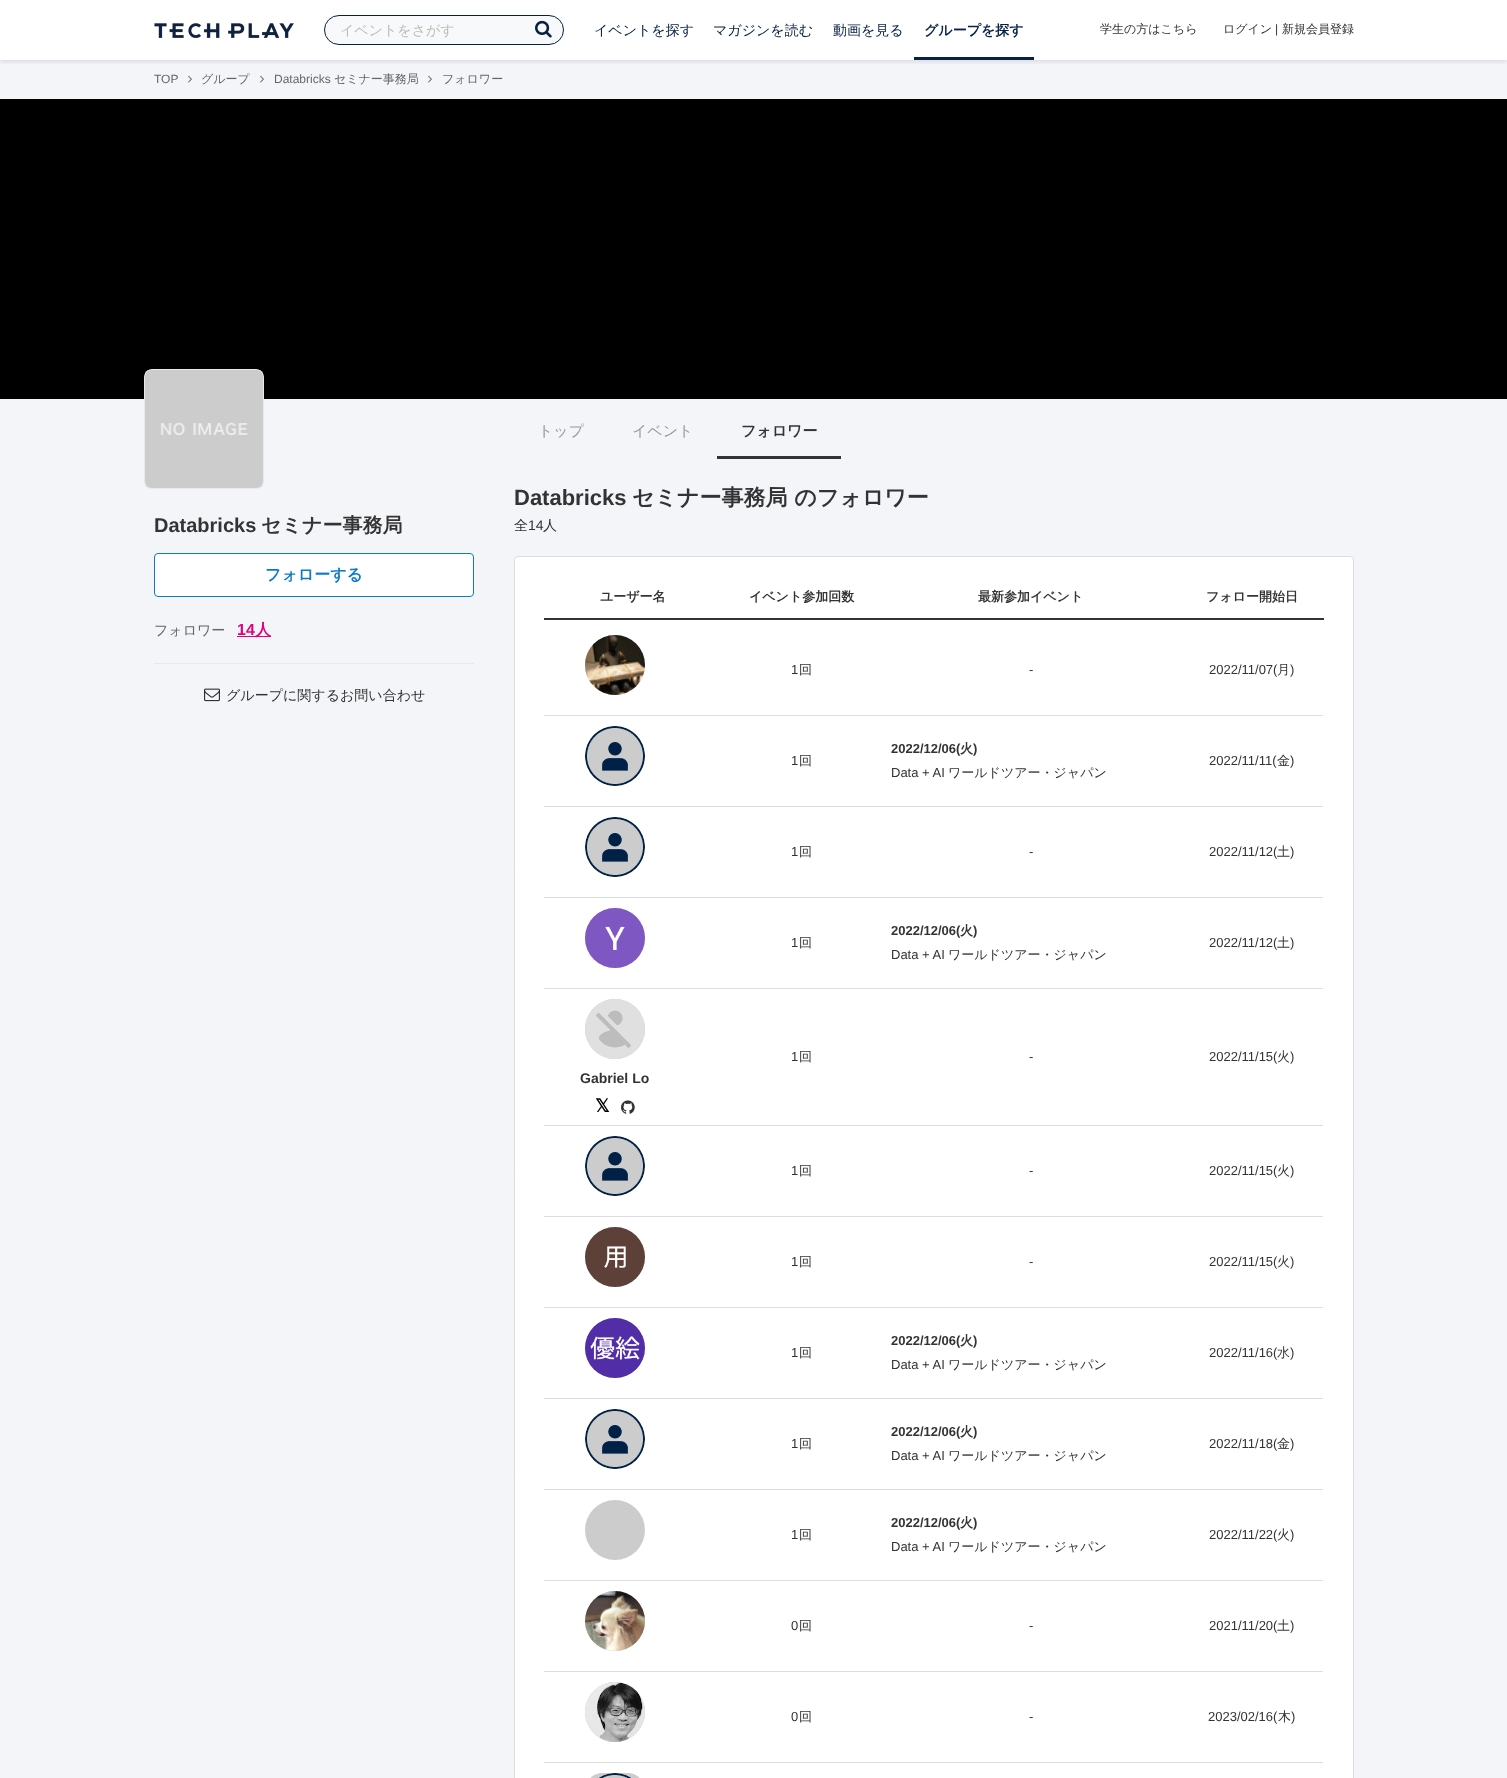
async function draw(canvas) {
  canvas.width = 1507;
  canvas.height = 1778;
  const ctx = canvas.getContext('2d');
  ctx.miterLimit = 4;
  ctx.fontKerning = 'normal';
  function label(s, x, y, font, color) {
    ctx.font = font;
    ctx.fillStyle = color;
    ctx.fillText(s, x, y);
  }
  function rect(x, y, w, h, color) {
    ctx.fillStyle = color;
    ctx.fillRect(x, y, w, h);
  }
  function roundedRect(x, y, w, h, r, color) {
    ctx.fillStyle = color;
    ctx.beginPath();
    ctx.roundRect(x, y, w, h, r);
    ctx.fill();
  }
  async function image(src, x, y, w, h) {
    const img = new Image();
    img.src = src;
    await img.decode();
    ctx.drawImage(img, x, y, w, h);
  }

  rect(0, 0, 1507, 1778, '#fff');
  rect(0, 60, 1507, 1718, '#f4f5f8');
  ctx.save();
  ctx.beginPath();
  ctx.rect(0, 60, 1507, 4);
  ctx.clip();
  ctx.fillStyle = '#0000001a';
  ctx.filter = 'blur(2.5px)';
  ctx.beginPath();
  ctx.rect(0, 2, 1507, 60);
  ctx.fill();
  ctx.filter = 'none';
  ctx.restore();
  await image('assets/img1.png', 154, 23, 140, 15);
  ctx.fillStyle = '#f7f9fb';
  ctx.beginPath();
  ctx.roundRect(324.5, 15.5, 239, 29, 14.5);
  ctx.fill();
  ctx.strokeStyle = '#072044';
  ctx.stroke();
  label('イベントをさがす', 340, 35, '500 14px WenQuanYi Zen Hei', '#bbb');
  await image('assets/img2.png', 535, 20, 17, 18);
  label('イベントを探す', 594, 35, '500 14px WenQuanYi Zen Hei', '#072044');
  label('マガジンを読む', 713, 35, '500 14px WenQuanYi Zen Hei', '#072044');
  label('動画を見る', 833, 35, '500 14px WenQuanYi Zen Hei', '#072044');
  label('グループを探す', 924, 35, 'bold 14px WenQuanYi Zen Hei', '#072044');
  rect(914, 57, 120, 3, '#072044');
  label('学生の方はこちら', 1100, 33, '500 12px WenQuanYi Zen Hei', '#333');
  label('ログイン', 1223, 33, '500 12px WenQuanYi Zen Hei', '#333');
  label('|', 1275, 33, '12px Liberation Sans', '#333');
  label('新規会員登録', 1282, 33, '500 12px WenQuanYi Zen Hei', '#333');
  label('TOP', 154, 83, '12px Liberation Sans', '#666');
  await image('assets/img3.png', 188, 75, 4, 8);
  label('グループ', 201, 83, '500 12px WenQuanYi Zen Hei', '#666');
  await image('assets/img3.png', 260, 75, 4, 8);
  label('Databricks', 274, 83, '12px Liberation Sans', '#666');
  label('セミナー事務局', 334, 83, '500 12px WenQuanYi Zen Hei', '#666');
  await image('assets/img3.png', 428, 75, 4, 8);
  label('フォロワー', 442, 83, '500 12px WenQuanYi Zen Hei', '#666');
  rect(0, 99, 1507, 300, '#000');
  await image('assets/img4.png', 145, 370, 118, 118);
  ctx.beginPath();
  ctx.roundRect(144.5, 369.5, 119, 119, 7.5);
  ctx.strokeStyle = '#e9e9e9';
  ctx.stroke();
  rect(154, 663, 320, 1, '#e9e9e9');
  label('Databricks', 154, 532, 'bold 20px Liberation Sans', '#333');
  label('セミナー事務局', 261, 532, 'bold 20px WenQuanYi Zen Hei', '#333');
  ctx.fillStyle = '#fff';
  ctx.beginPath();
  ctx.roundRect(154.5, 553.5, 319, 43, 3.5);
  ctx.fill();
  ctx.strokeStyle = '#0e7ac4';
  ctx.stroke();
  label('フォローする', 265, 580, 'bold 16px WenQuanYi Zen Hei', '#0e7ac4');
  label('フォロワー', 154, 635, '500 14px WenQuanYi Zen Hei', '#666');
  label('14', 237, 635, 'bold 16px Liberation Sans', '#e3017f');
  rect(237, 636, 34, 1, '#e3017f');
  label('人', 255, 635, 'bold 16px WenQuanYi Zen Hei', '#e3017f');
  await image('assets/img5.png', 204, 688, 16, 14);
  label('グループに関するお問い合わせ', 226, 700, '500 14px WenQuanYi Zen Hei', '#333');
  label('トップ', 538, 436, '500 15px WenQuanYi Zen Hei', '#999');
  label('イベント', 632, 436, '500 15px WenQuanYi Zen Hei', '#999');
  label('フォロワー', 741, 436, 'bold 15px WenQuanYi Zen Hei', '#333');
  rect(717, 456, 124, 3, '#333');
  label('Databricks', 514, 505, 'bold 22px Liberation Sans', '#333');
  label('セミナー事務局 のフォロワー', 632, 505, 'bold 22px WenQuanYi Zen Hei', '#333');
  label('全', 514, 530, '500 14px WenQuanYi Zen Hei', '#333');
  label('14', 528, 530, '14px Liberation Sans', '#333');
  label('人', 543, 530, '500 14px WenQuanYi Zen Hei', '#333');
  ctx.fillStyle = '#fff';
  ctx.beginPath();
  ctx.roundRect(514.5, 556.5, 839, 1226, 3.5);
  ctx.fill();
  ctx.strokeStyle = '#ddd';
  ctx.stroke();
  label('ユーザー名', 600, 601, 'bold 13px WenQuanYi Zen Hei', '#333');
  label('イベント参加回数', 749, 601, 'bold 13px WenQuanYi Zen Hei', '#333');
  label('最新参加イベント', 978, 601, 'bold 13px WenQuanYi Zen Hei', '#333');
  rect(544, 618, 780, 2, '#333');
  label('フォロー開始日', 1206, 601, 'bold 13px WenQuanYi Zen Hei', '#333');
  ctx.fillStyle = '#ccc';
  ctx.beginPath();
  ctx.arc(615, 665, 30, 0, 2 * Math.PI);
  ctx.fill();
  await image('assets/img6.png', 585, 635, 60, 60);
  label('1', 791, 674, '13px Liberation Sans', '#333');
  label('回', 799, 674, '500 13px WenQuanYi Zen Hei', '#333');
  label('-', 1029, 674, '13px Liberation Sans', '#333');
  label('2022/11/07(', 1209, 674, '13px Liberation Sans', '#333');
  label('月', 1277, 674, '500 13px WenQuanYi Zen Hei', '#333');
  label(')', 1290, 674, '13px Liberation Sans', '#333');
  rect(544, 715, 779, 1, '#ddd');
  ctx.fillStyle = '#ccc';
  ctx.beginPath();
  ctx.arc(615, 756, 30, 0, 2 * Math.PI);
  ctx.fill();
  await image('assets/img7.png', 585, 726, 60, 60);
  label('1', 791, 765, '13px Liberation Sans', '#333');
  label('回', 799, 765, '500 13px WenQuanYi Zen Hei', '#333');
  label('2022/12/06(', 891, 753, 'bold 13px Liberation Sans', '#333');
  label('火', 960, 753, 'bold 13px WenQuanYi Zen Hei', '#333');
  label(')', 973, 753, 'bold 13px Liberation Sans', '#333');
  label('Data + AI', 891, 777, '13px Liberation Sans', '#333');
  label('ワールドツアー・ジャパン', 948, 777, '500 13px WenQuanYi Zen Hei', '#333');
  label('2022/11/11(', 1209, 765, '13px Liberation Sans', '#333');
  label('金', 1277, 765, '500 13px WenQuanYi Zen Hei', '#333');
  label(')', 1290, 765, '13px Liberation Sans', '#333');
  rect(544, 806, 779, 1, '#ddd');
  ctx.fillStyle = '#ccc';
  ctx.beginPath();
  ctx.arc(615, 847, 30, 0, 2 * Math.PI);
  ctx.fill();
  await image('assets/img8.png', 585, 817, 60, 60);
  label('1', 791, 856, '13px Liberation Sans', '#333');
  label('回', 799, 856, '500 13px WenQuanYi Zen Hei', '#333');
  label('-', 1029, 856, '13px Liberation Sans', '#333');
  label('2022/11/12(', 1209, 856, '13px Liberation Sans', '#333');
  label('土', 1277, 856, '500 13px WenQuanYi Zen Hei', '#333');
  label(')', 1290, 856, '13px Liberation Sans', '#333');
  rect(544, 897, 779, 1, '#ddd');
  ctx.fillStyle = '#ccc';
  ctx.beginPath();
  ctx.arc(615, 938, 30, 0, 2 * Math.PI);
  ctx.fill();
  await image('assets/img9.png', 585, 908, 60, 60);
  label('1', 791, 947, '13px Liberation Sans', '#333');
  label('回', 799, 947, '500 13px WenQuanYi Zen Hei', '#333');
  label('2022/12/06(', 891, 935, 'bold 13px Liberation Sans', '#333');
  label('火', 960, 935, 'bold 13px WenQuanYi Zen Hei', '#333');
  label(')', 973, 935, 'bold 13px Liberation Sans', '#333');
  label('Data + AI', 891, 959, '13px Liberation Sans', '#333');
  label('ワールドツアー・ジャパン', 948, 959, '500 13px WenQuanYi Zen Hei', '#333');
  label('2022/11/12(', 1209, 947, '13px Liberation Sans', '#333');
  label('土', 1277, 947, '500 13px WenQuanYi Zen Hei', '#333');
  label(')', 1290, 947, '13px Liberation Sans', '#333');
  rect(544, 988, 779, 1, '#ddd');
  label('1', 791, 1061, '13px Liberation Sans', '#333');
  label('回', 799, 1061, '500 13px WenQuanYi Zen Hei', '#333');
  label('-', 1029, 1061, '13px Liberation Sans', '#333');
  label('2022/11/15(', 1209, 1061, '13px Liberation Sans', '#333');
  label('火', 1277, 1061, '500 13px WenQuanYi Zen Hei', '#333');
  label(')', 1290, 1061, '13px Liberation Sans', '#333');
  ctx.fillStyle = '#ccc';
  ctx.beginPath();
  ctx.arc(615, 1029, 30, 0, 2 * Math.PI);
  ctx.fill();
  await image('assets/img10.png', 585, 999, 60, 60);
  label('Gabriel Lo', 580, 1083, 'bold 14px Liberation Sans', '#333');
  label('𝕏', 595, 1112, 'bold 18px DejaVu Sans', '#000');
  await image('assets/img11.png', 621, 1100, 14, 14);
  rect(544, 1125, 779, 1, '#ddd');
  ctx.fillStyle = '#ccc';
  ctx.beginPath();
  ctx.arc(615, 1166, 30, 0, 2 * Math.PI);
  ctx.fill();
  await image('assets/img8.png', 585, 1136, 60, 60);
  label('1', 791, 1175, '13px Liberation Sans', '#333');
  label('回', 799, 1175, '500 13px WenQuanYi Zen Hei', '#333');
  label('-', 1029, 1175, '13px Liberation Sans', '#333');
  label('2022/11/15(', 1209, 1175, '13px Liberation Sans', '#333');
  label('火', 1277, 1175, '500 13px WenQuanYi Zen Hei', '#333');
  label(')', 1290, 1175, '13px Liberation Sans', '#333');
  rect(544, 1216, 779, 1, '#ddd');
  ctx.fillStyle = '#ccc';
  ctx.beginPath();
  ctx.arc(615, 1257, 30, 0, 2 * Math.PI);
  ctx.fill();
  await image('assets/img12.png', 585, 1227, 60, 60);
  label('1', 791, 1266, '13px Liberation Sans', '#333');
  label('回', 799, 1266, '500 13px WenQuanYi Zen Hei', '#333');
  label('-', 1029, 1266, '13px Liberation Sans', '#333');
  label('2022/11/15(', 1209, 1266, '13px Liberation Sans', '#333');
  label('火', 1277, 1266, '500 13px WenQuanYi Zen Hei', '#333');
  label(')', 1290, 1266, '13px Liberation Sans', '#333');
  rect(544, 1307, 779, 1, '#ddd');
  ctx.fillStyle = '#ccc';
  ctx.beginPath();
  ctx.arc(615, 1348, 30, 0, 2 * Math.PI);
  ctx.fill();
  await image('assets/img13.png', 585, 1318, 60, 60);
  label('1', 791, 1357, '13px Liberation Sans', '#333');
  label('回', 799, 1357, '500 13px WenQuanYi Zen Hei', '#333');
  label('2022/12/06(', 891, 1345, 'bold 13px Liberation Sans', '#333');
  label('火', 960, 1345, 'bold 13px WenQuanYi Zen Hei', '#333');
  label(')', 973, 1345, 'bold 13px Liberation Sans', '#333');
  label('Data + AI', 891, 1369, '13px Liberation Sans', '#333');
  label('ワールドツアー・ジャパン', 948, 1369, '500 13px WenQuanYi Zen Hei', '#333');
  label('2022/11/16(', 1209, 1357, '13px Liberation Sans', '#333');
  label('水', 1277, 1357, '500 13px WenQuanYi Zen Hei', '#333');
  label(')', 1290, 1357, '13px Liberation Sans', '#333');
  rect(544, 1398, 779, 1, '#ddd');
  ctx.fillStyle = '#ccc';
  ctx.beginPath();
  ctx.arc(615, 1439, 30, 0, 2 * Math.PI);
  ctx.fill();
  await image('assets/img8.png', 585, 1409, 60, 60);
  label('1', 791, 1448, '13px Liberation Sans', '#333');
  label('回', 799, 1448, '500 13px WenQuanYi Zen Hei', '#333');
  label('2022/12/06(', 891, 1436, 'bold 13px Liberation Sans', '#333');
  label('火', 960, 1436, 'bold 13px WenQuanYi Zen Hei', '#333');
  label(')', 973, 1436, 'bold 13px Liberation Sans', '#333');
  label('Data + AI', 891, 1460, '13px Liberation Sans', '#333');
  label('ワールドツアー・ジャパン', 948, 1460, '500 13px WenQuanYi Zen Hei', '#333');
  label('2022/11/18(', 1209, 1448, '13px Liberation Sans', '#333');
  label('金', 1277, 1448, '500 13px WenQuanYi Zen Hei', '#333');
  label(')', 1290, 1448, '13px Liberation Sans', '#333');
  rect(544, 1489, 779, 1, '#ddd');
  ctx.fillStyle = '#ccc';
  ctx.beginPath();
  ctx.arc(615, 1530, 30, 0, 2 * Math.PI);
  ctx.fill();
  label('1', 791, 1539, '13px Liberation Sans', '#333');
  label('回', 799, 1539, '500 13px WenQuanYi Zen Hei', '#333');
  label('2022/12/06(', 891, 1527, 'bold 13px Liberation Sans', '#333');
  label('火', 960, 1527, 'bold 13px WenQuanYi Zen Hei', '#333');
  label(')', 973, 1527, 'bold 13px Liberation Sans', '#333');
  label('Data + AI', 891, 1551, '13px Liberation Sans', '#333');
  label('ワールドツアー・ジャパン', 948, 1551, '500 13px WenQuanYi Zen Hei', '#333');
  label('2022/11/22(', 1209, 1539, '13px Liberation Sans', '#333');
  label('火', 1277, 1539, '500 13px WenQuanYi Zen Hei', '#333');
  label(')', 1290, 1539, '13px Liberation Sans', '#333');
  rect(544, 1580, 779, 1, '#ddd');
  ctx.fillStyle = '#ccc';
  ctx.beginPath();
  ctx.arc(615, 1621, 30, 0, 2 * Math.PI);
  ctx.fill();
  await image('assets/img14.png', 585, 1591, 60, 60);
  label('0', 791, 1630, '13px Liberation Sans', '#333');
  label('回', 799, 1630, '500 13px WenQuanYi Zen Hei', '#333');
  label('-', 1029, 1630, '13px Liberation Sans', '#333');
  label('2021/11/20(', 1209, 1630, '13px Liberation Sans', '#333');
  label('土', 1277, 1630, '500 13px WenQuanYi Zen Hei', '#333');
  label(')', 1290, 1630, '13px Liberation Sans', '#333');
  rect(544, 1671, 779, 1, '#ddd');
  ctx.fillStyle = '#ccc';
  ctx.beginPath();
  ctx.arc(615, 1712, 30, 0, 2 * Math.PI);
  ctx.fill();
  await image('assets/img15.png', 585, 1682, 60, 60);
  label('0', 791, 1721, '13px Liberation Sans', '#333');
  label('回', 799, 1721, '500 13px WenQuanYi Zen Hei', '#333');
  label('-', 1029, 1721, '13px Liberation Sans', '#333');
  label('2023/02/16(', 1208, 1721, '13px Liberation Sans', '#333');
  label('木', 1278, 1721, '500 13px WenQuanYi Zen Hei', '#333');
  label(')', 1291, 1721, '13px Liberation Sans', '#333');
  rect(544, 1762, 779, 1, '#ddd');
  roundedRect(585, 1773, 60, 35, 30, '#ccc');
  await image('assets/img16.png', 599, 1773, 32, 5);
}

draw(document.querySelector('canvas'));
